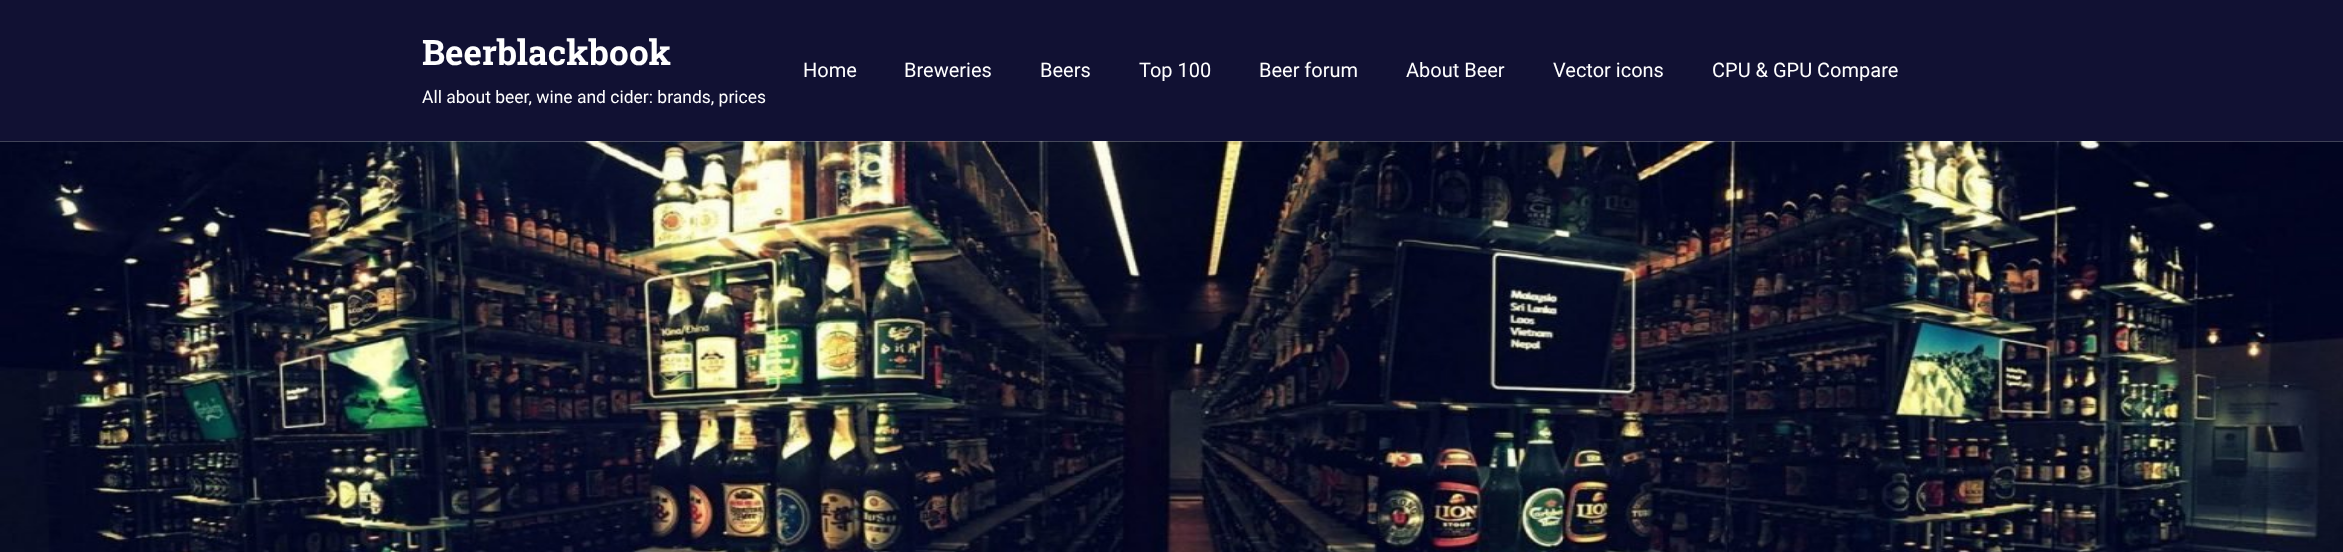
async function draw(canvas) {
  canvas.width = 2343;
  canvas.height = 552;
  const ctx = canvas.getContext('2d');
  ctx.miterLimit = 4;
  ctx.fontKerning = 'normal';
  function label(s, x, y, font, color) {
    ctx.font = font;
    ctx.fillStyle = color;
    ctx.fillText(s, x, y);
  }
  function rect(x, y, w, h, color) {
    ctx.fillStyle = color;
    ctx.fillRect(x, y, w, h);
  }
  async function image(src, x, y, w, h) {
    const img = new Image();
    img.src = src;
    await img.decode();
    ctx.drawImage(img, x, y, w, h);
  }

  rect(0, 0, 2343, 552, '#fff');
  rect(0, 0, 2343, 141, '#113');
  label('Beerblackbook', 422, 65, 'bold 35px Roboto Slab', '#fff');
  label('All about beer, wine and cider: brands, prices', 422, 103, '17.5px Roboto', '#fff');
  label('Home', 803, 77, '20px Roboto', '#fff');
  label('Breweries', 904, 77, '20px Roboto', '#fff');
  label('Beers', 1040, 77, '20px Roboto', '#fff');
  label('Top 100', 1139, 77, '20px Roboto', '#fff');
  label('Beer forum', 1259, 77, '20px Roboto', '#fff');
  label('About Beer', 1406, 77, '20px Roboto', '#fff');
  label('Vector icons', 1553, 77, '20px Roboto', '#fff');
  label('CPU & GPU Compare', 1712, 77, '20px Roboto', '#fff');
  await image('assets/img1.png', 0, 141, 2343, 411);
}

draw(document.querySelector('canvas'));
